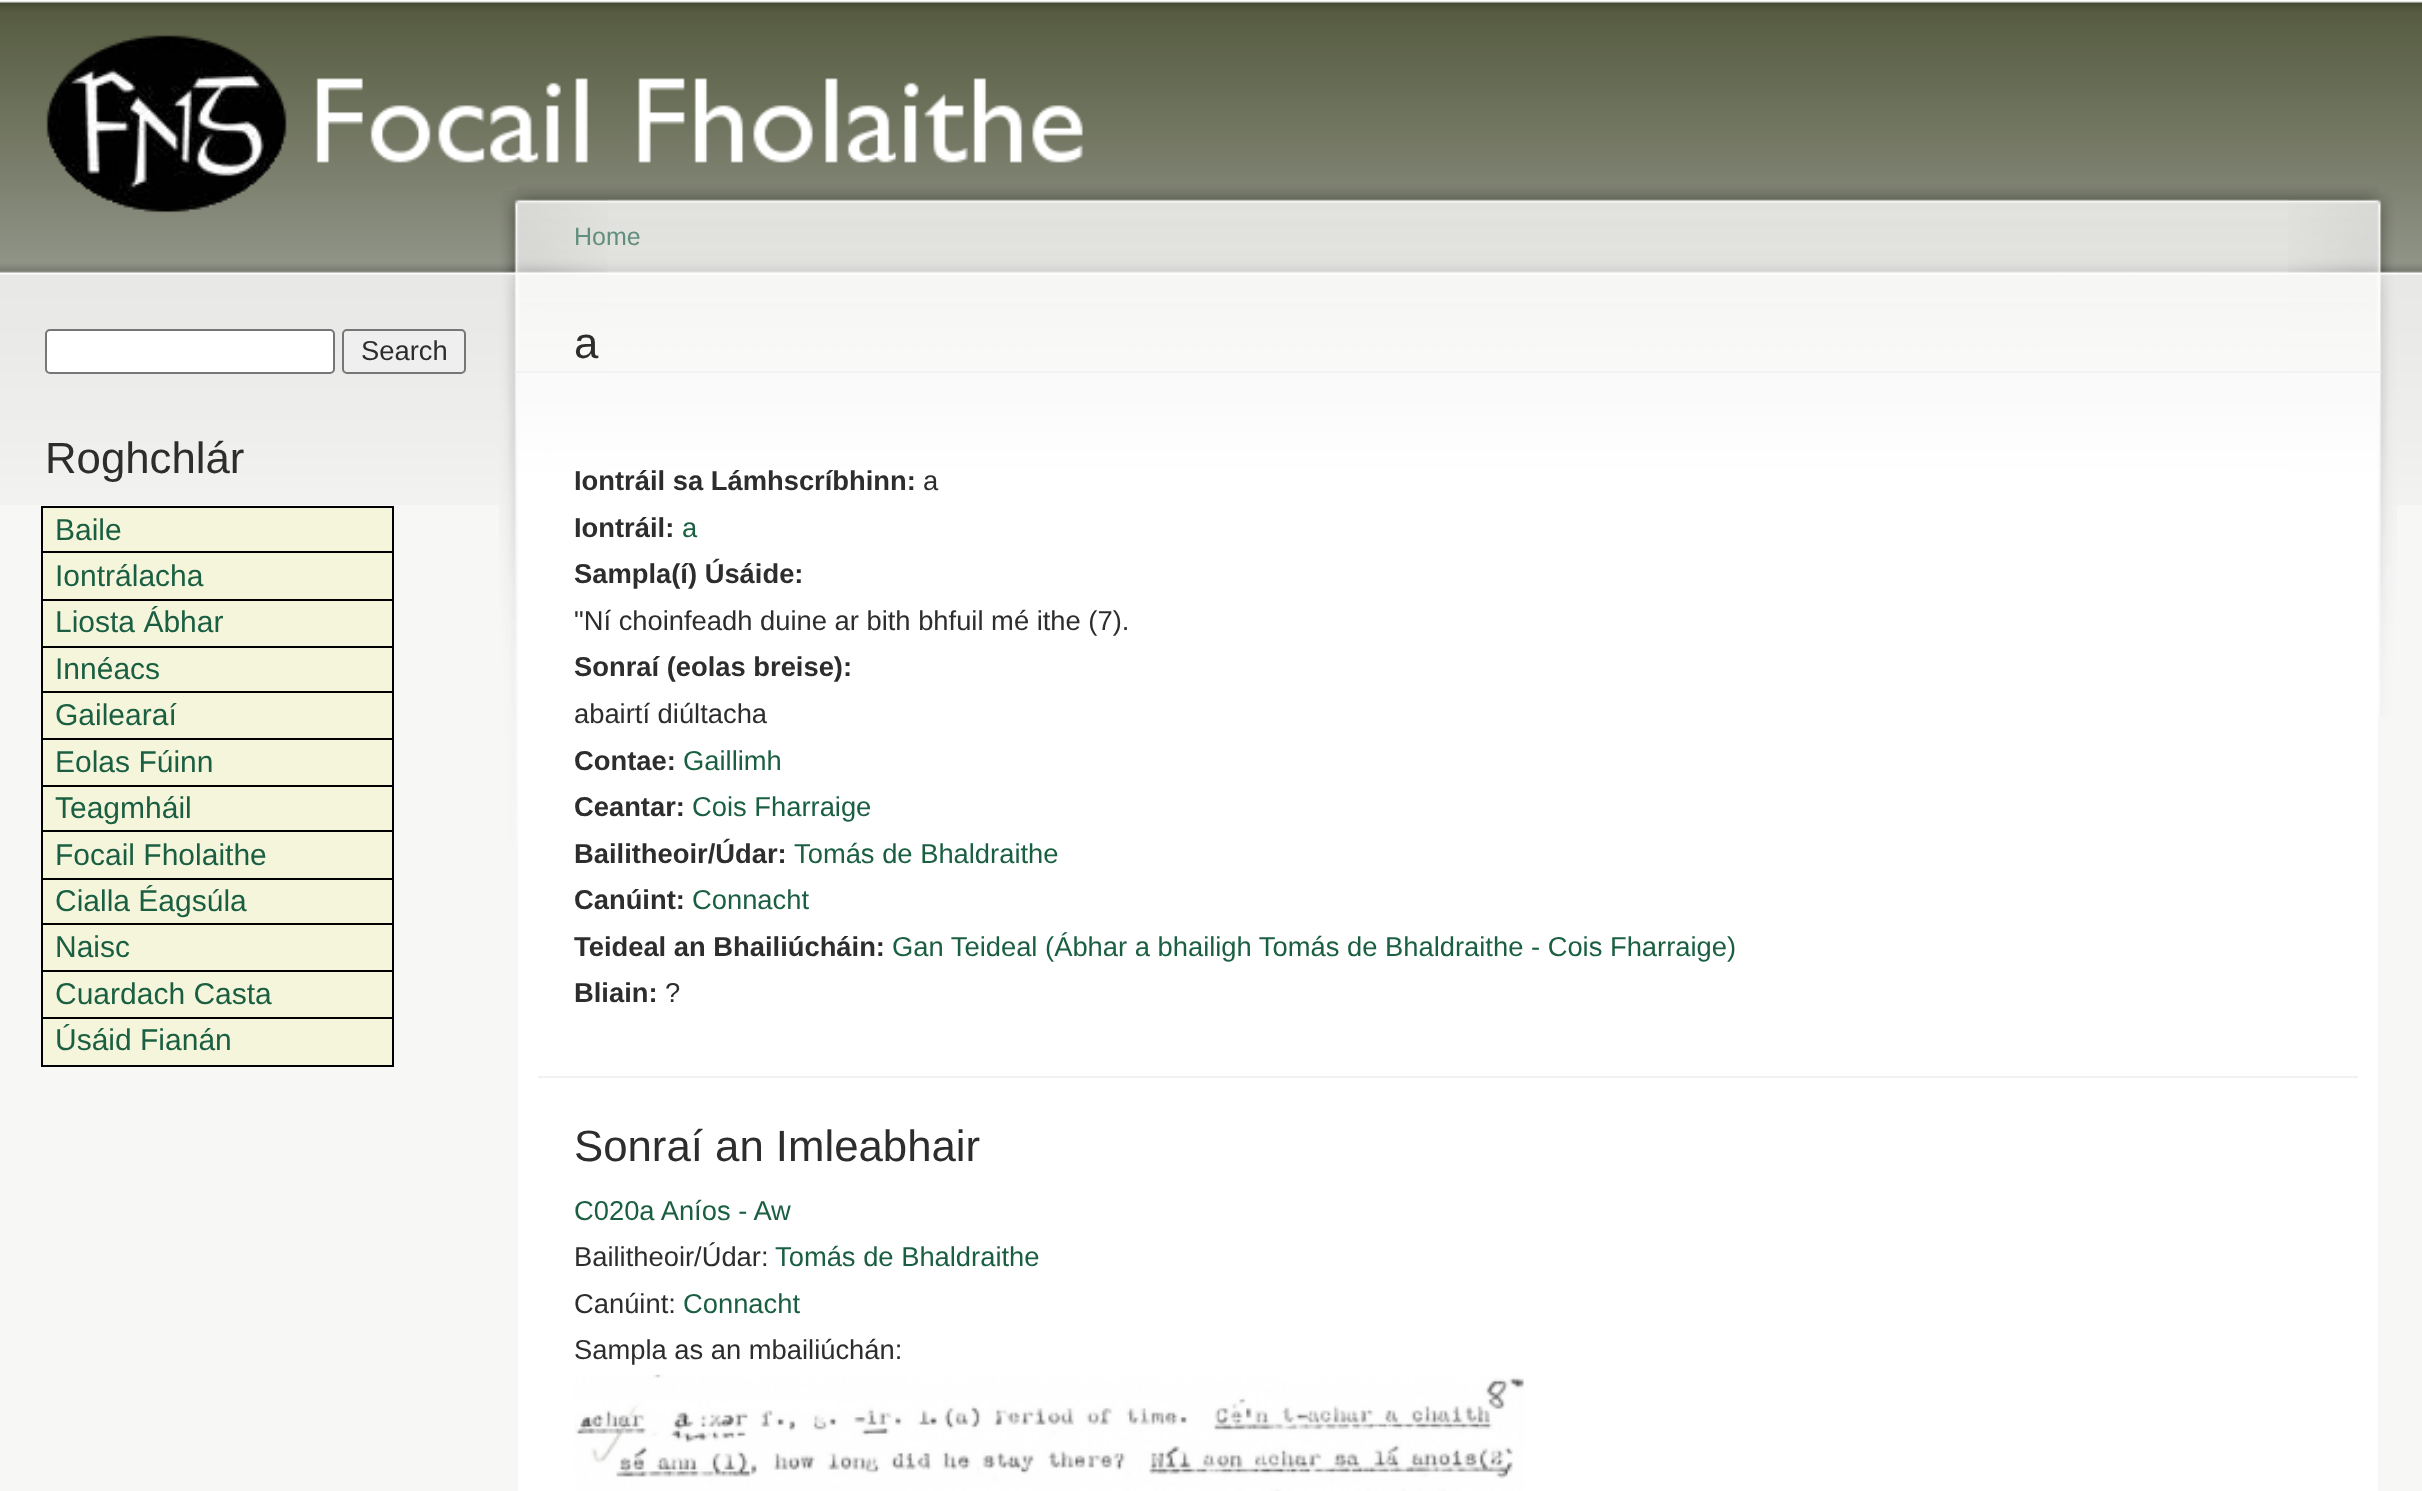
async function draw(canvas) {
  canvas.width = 2422;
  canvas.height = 1491;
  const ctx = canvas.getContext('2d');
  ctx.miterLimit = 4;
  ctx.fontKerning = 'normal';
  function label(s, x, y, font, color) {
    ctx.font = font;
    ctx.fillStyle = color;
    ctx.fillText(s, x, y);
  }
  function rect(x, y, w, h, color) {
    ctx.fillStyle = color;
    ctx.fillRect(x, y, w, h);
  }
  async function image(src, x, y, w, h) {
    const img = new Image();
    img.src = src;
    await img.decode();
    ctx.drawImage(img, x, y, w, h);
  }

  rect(0, 0, 2422, 1491, '#f7f7f6');
  await image('assets/img1.png', 0, 0, 2422, 505);
  await image('assets/img3.png', 517, 180, 1862, 450);
  rect(518, 630, 1860, 861, '#fff');
  await image('assets/img5.png', 499, 190, 109, 653);
  await image('assets/img2.png', 46, 35, 1037, 178);
  ctx.beginPath();
  ctx.roundRect(46, 330, 288, 43, 4);
  ctx.fill();
  ctx.strokeStyle = '#767676';
  ctx.lineWidth = 2;
  ctx.stroke();
  ctx.fillStyle = '#efefef';
  ctx.beginPath();
  ctx.roundRect(343, 330, 122, 43, 4);
  ctx.fill();
  ctx.stroke();
  label('Search', 361, 360, '27.35px Liberation Sans', '#2d2d2d');
  label('Roghchlár', 45, 473, '43.75px Liberation Sans', '#2d2d2d');
  rect(43, 508, 349, 43, '#f5f5dc');
  ctx.strokeStyle = '#000';
  ctx.strokeRect(42, 507, 351, 48);
  label('Baile', 55, 540, '30px Liberation Sans', '#1b5f42');
  ctx.fillStyle = '#f5f5dc';
  ctx.beginPath();
  ctx.rect(42, 552, 351, 48);
  ctx.fill();
  ctx.stroke();
  label('Iontrálacha', 55, 586, '30px Liberation Sans', '#1b5f42');
  ctx.fillStyle = '#f5f5dc';
  ctx.beginPath();
  ctx.rect(42, 600, 351, 47);
  ctx.fill();
  ctx.stroke();
  label('Liosta Ábhar', 55, 632, '30px Liberation Sans', '#1b5f42');
  rect(43, 648, 349, 43, '#f5f5dc');
  ctx.strokeRect(42, 647, 351, 47);
  label('Innéacs', 55, 679, '30px Liberation Sans', '#1b5f42');
  ctx.fillStyle = '#f5f5dc';
  ctx.beginPath();
  ctx.rect(42, 692, 351, 47);
  ctx.fill();
  ctx.stroke();
  label('Gailearaí', 55, 725, '30px Liberation Sans', '#1b5f42');
  rect(43, 740, 349, 45, '#f5f5dc');
  ctx.strokeRect(42, 739, 351, 48);
  label('Eolas Fúinn', 55, 772, '30px Liberation Sans', '#1b5f42');
  rect(43, 787, 349, 43, '#f5f5dc');
  ctx.strokeRect(42, 786, 351, 48);
  label('Teagmháil', 55, 818, '30px Liberation Sans', '#1b5f42');
  ctx.fillStyle = '#f5f5dc';
  ctx.beginPath();
  ctx.rect(42, 831, 351, 48);
  ctx.fill();
  ctx.stroke();
  label('Focail Fholaithe', 55, 865, '30px Liberation Sans', '#1b5f42');
  rect(43, 880, 349, 43, '#f5f5dc');
  ctx.strokeRect(42, 879, 351, 47);
  label('Cialla Éagsúla', 55, 911, '30px Liberation Sans', '#1b5f42');
  ctx.fillStyle = '#f5f5dc';
  ctx.beginPath();
  ctx.rect(42, 924, 351, 47);
  ctx.fill();
  ctx.stroke();
  label('Naisc', 55, 957, '30px Liberation Sans', '#1b5f42');
  ctx.fillStyle = '#f5f5dc';
  ctx.beginPath();
  ctx.rect(42, 971, 351, 47);
  ctx.fill();
  ctx.stroke();
  label('Cuardach Casta', 55, 1004, '30px Liberation Sans', '#1b5f42');
  ctx.fillStyle = '#f5f5dc';
  ctx.beginPath();
  ctx.rect(42, 1018, 351, 48);
  ctx.fill();
  ctx.stroke();
  label('Úsáid Fianán', 55, 1050, '30px Liberation Sans', '#1b5f42');
  await image('assets/img4.png', 2288, 191, 109, 526);
  label('Home', 574, 245, '25px Liberation Sans', '#628e7e');
  rect(515, 371, 1866, 2, '#f2f2f2');
  label('a', 574, 358, '43.75px Liberation Sans', '#2d2d2d');
  rect(538, 1076, 1820, 2, '#f2f2f2');
  label('Iontráil sa Lámhscríbhinn:', 574, 490, 'bold 27.35px Liberation Sans', '#2d2d2d');
  label('a', 923, 490, '27.35px Liberation Sans', '#2d2d2d');
  label('Iontráil:', 574, 537, 'bold 27.35px Liberation Sans', '#2d2d2d');
  label('a', 682, 537, '27.35px Liberation Sans', '#1b5f42');
  label('Sampla(í) Úsáide:', 574, 583, 'bold 27.35px Liberation Sans', '#2d2d2d');
  label('"Ní choinfeadh duine ar bith bhfuil mé ithe (7).', 574, 630, '27.35px Liberation Sans', '#2d2d2d');
  label('Sonraí (eolas breise):', 574, 676, 'bold 27.35px Liberation Sans', '#2d2d2d');
  label('abairtí diúltacha', 574, 723, '27.35px Liberation Sans', '#2d2d2d');
  label('Contae:', 574, 770, 'bold 27.35px Liberation Sans', '#2d2d2d');
  label('Gaillimh', 683, 770, '27.35px Liberation Sans', '#1b5f42');
  label('Ceantar:', 574, 816, 'bold 27.35px Liberation Sans', '#2d2d2d');
  label('Cois Fharraige', 692, 816, '27.35px Liberation Sans', '#1b5f42');
  label('Bailitheoir/Údar:', 574, 863, 'bold 27.35px Liberation Sans', '#2d2d2d');
  label('Tomás de Bhaldraithe', 794, 863, '27.35px Liberation Sans', '#1b5f42');
  label('Canúint:', 574, 909, 'bold 27.35px Liberation Sans', '#2d2d2d');
  label('Connacht', 692, 909, '27.35px Liberation Sans', '#1b5f42');
  label('Teideal an Bhailiúcháin:', 574, 956, 'bold 27.35px Liberation Sans', '#2d2d2d');
  label('Gan Teideal (Ábhar a bhailigh Tomás de Bhaldraithe - Cois Fharraige)', 892, 956, '27.35px Liberation Sans', '#1b5f42');
  label('Bliain:', 574, 1002, 'bold 27.35px Liberation Sans', '#2d2d2d');
  label('?', 665, 1002, '27.35px Liberation Sans', '#2d2d2d');
  label('Sonraí an Imleabhair', 574, 1161, '43.75px Liberation Sans', '#2d2d2d');
  label('C020a Aníos - Aw', 574, 1220, '27.35px Liberation Sans', '#1b5f42');
  label('Bailitheoir/Údar:', 574, 1266, '27.35px Liberation Sans', '#2d2d2d');
  label('Tomás de Bhaldraithe', 775, 1266, '27.35px Liberation Sans', '#1b5f42');
  label('Canúint:', 574, 1313, '27.35px Liberation Sans', '#2d2d2d');
  label('Connacht', 683, 1313, '27.35px Liberation Sans', '#1b5f42');
  label('Sampla as an mbailiúchán:', 574, 1359, '27.35px Liberation Sans', '#2d2d2d');
  await image('assets/img6.png', 574, 1374, 950, 117);
}

draw(document.querySelector('canvas'));
